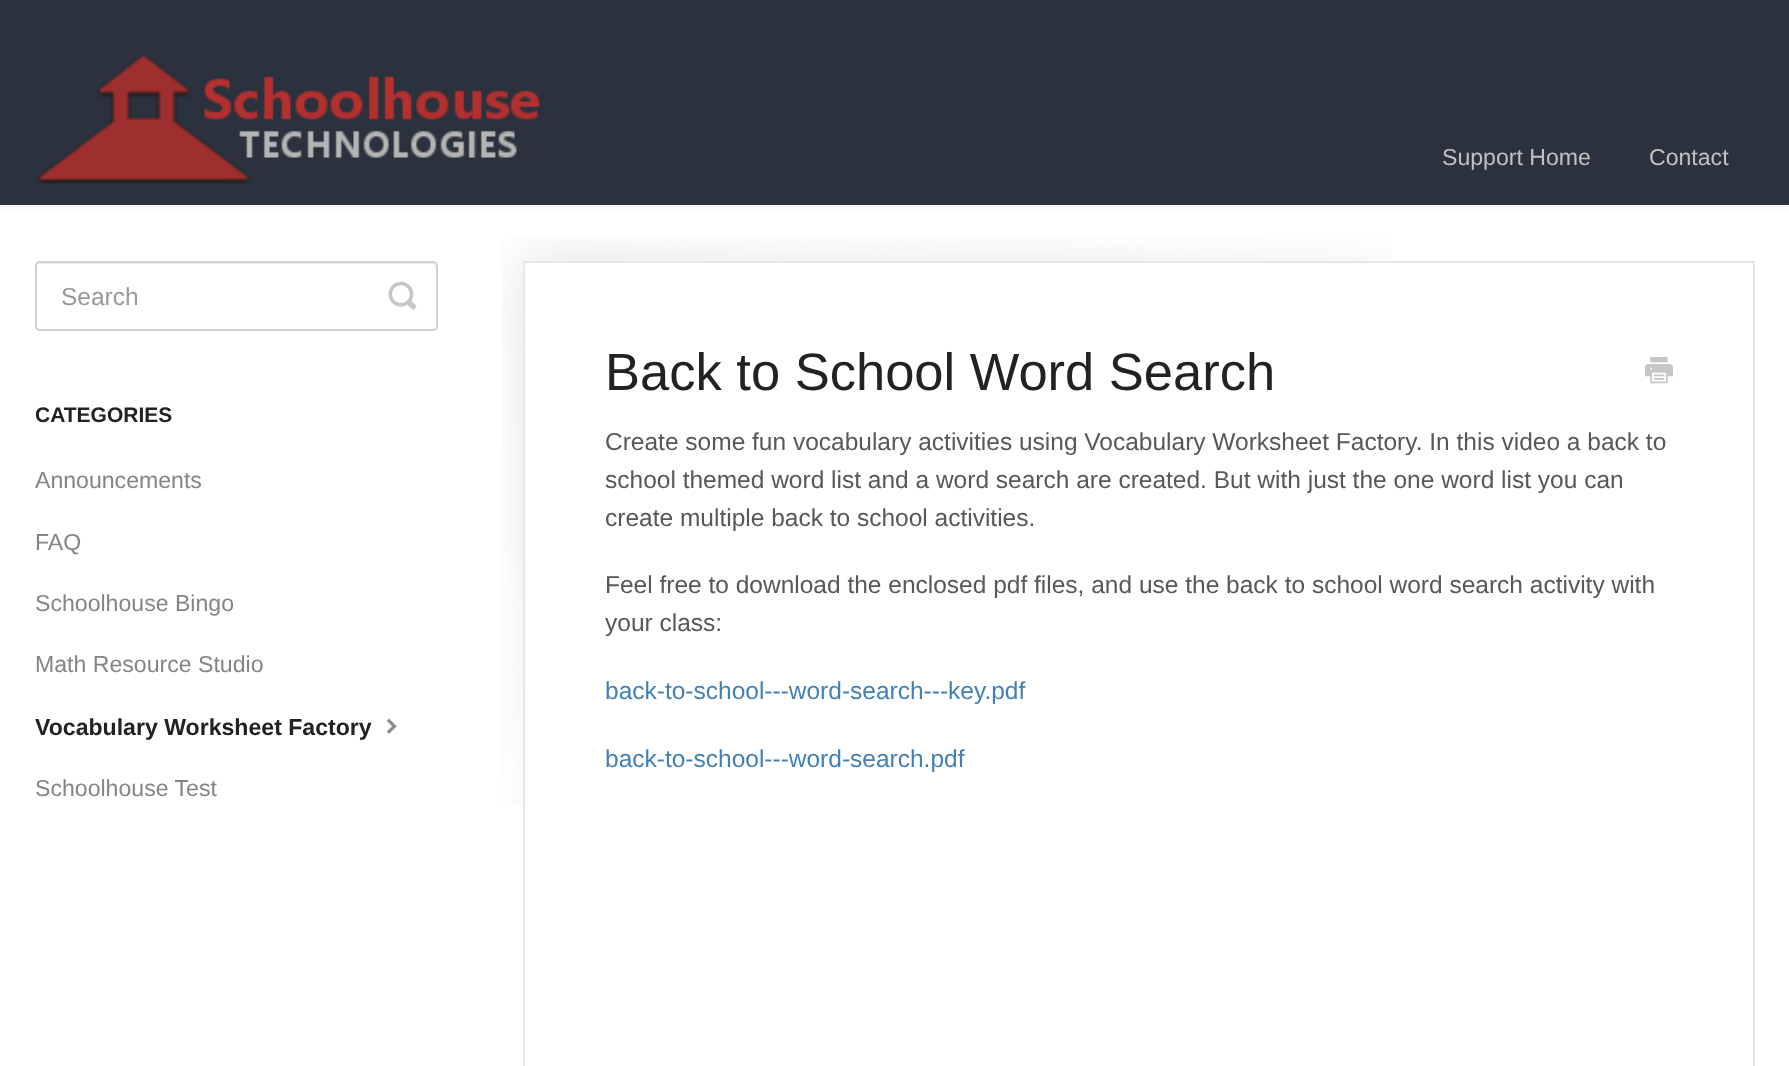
async function draw(canvas) {
  canvas.width = 1789;
  canvas.height = 1066;
  const ctx = canvas.getContext('2d');
  ctx.miterLimit = 4;
  ctx.fontKerning = 'normal';
  function label(s, x, y, font, color) {
    ctx.font = font;
    ctx.fillStyle = color;
    ctx.fillText(s, x, y);
  }
  function rect(x, y, w, h, color) {
    ctx.fillStyle = color;
    ctx.fillRect(x, y, w, h);
  }
  async function image(src, x, y, w, h) {
    const img = new Image();
    img.src = src;
    await img.decode();
    ctx.drawImage(img, x, y, w, h);
  }
  let path;

  rect(0, 0, 1789, 1066, '#fff');
  ctx.fillStyle = '#00000012';
  ctx.filter = 'blur(3.5px)';
  ctx.beginPath();
  ctx.rect(0, 2, 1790, 205);
  ctx.fill();
  ctx.filter = 'none';
  rect(0, 0, 1789, 205, '#2c323d');
  await image('assets/img1.png', 38, 54, 502, 131);
  label('Support Home', 1442, 165, '23.1px Liberation Sans', '#c0c0c0');
  label('Contact', 1649, 165, '23.1px Liberation Sans', '#c0c0c0');
  ctx.fillStyle = '#ececec';
  path = new Path2D('M40 264H432C434 264 436 266 436 268C436 265 435 263 432 263H41C38 263 37 265 37 268C37 266 38 264 40 264Z');
  ctx.fill(path);
  ctx.beginPath();
  ctx.roundRect(36, 262, 401, 68, 4);
  ctx.strokeStyle = '#d0d0d0';
  ctx.lineWidth = 2;
  ctx.stroke();
  label('Search', 61, 305, '24.5px Liberation Sans', '#999');
  await image('assets/img2.png', 388, 281, 29, 29);
  label('CATEGORIES', 35, 422, 'bold 21px Liberation Sans', '#222');
  label('Announcements', 35, 488, '23.1px Liberation Sans', '#858585');
  label('FAQ', 35, 550, '23.1px Liberation Sans', '#858585');
  label('Schoolhouse Bingo', 35, 611, '23.1px Liberation Sans', '#858585');
  label('Math Resource Studio', 35, 672, '23.1px Liberation Sans', '#858585');
  label('Vocabulary Worksheet Factory', 35, 735, 'bold 23.1px Liberation Sans', '#222');
  await image('assets/img3.png', 386, 718, 11, 16);
  label('Schoolhouse Test', 35, 796, '23.1px Liberation Sans', '#858585');
  await image('assets/img4.png', 501, 237, 891, 569);
  ctx.strokeStyle = '#e9e5e5';
  ctx.strokeRect(524, 262, 1230, 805);
  label('Back to School Word Search', 605, 390, '52.5px Liberation Sans', '#222');
  await image('assets/img5.png', 1645, 357, 28, 27);
  label('Create some fun vocabulary activities using Vocabulary Worksheet Factory. In this video a back to', 605, 450, '24.5px Liberation Sans', '#585858');
  label('school themed word list and a word search are created. But with just the one word list you can', 605, 488, '24.5px Liberation Sans', '#585858');
  label('create multiple back to school activities.', 605, 526, '24.5px Liberation Sans', '#585858');
  label('Feel free to download the enclosed pdf files, and use the back to school word search activity with', 605, 593, '24.5px Liberation Sans', '#585858');
  label('your class:', 605, 631, '24.5px Liberation Sans', '#585858');
  label('back-to-school---word-search---key.pdf', 605, 699, '24.5px Liberation Sans', '#4381b5');
  label('back-to-school---word-search.pdf', 605, 767, '24.5px Liberation Sans', '#4381b5');
}

draw(document.querySelector('canvas'));
